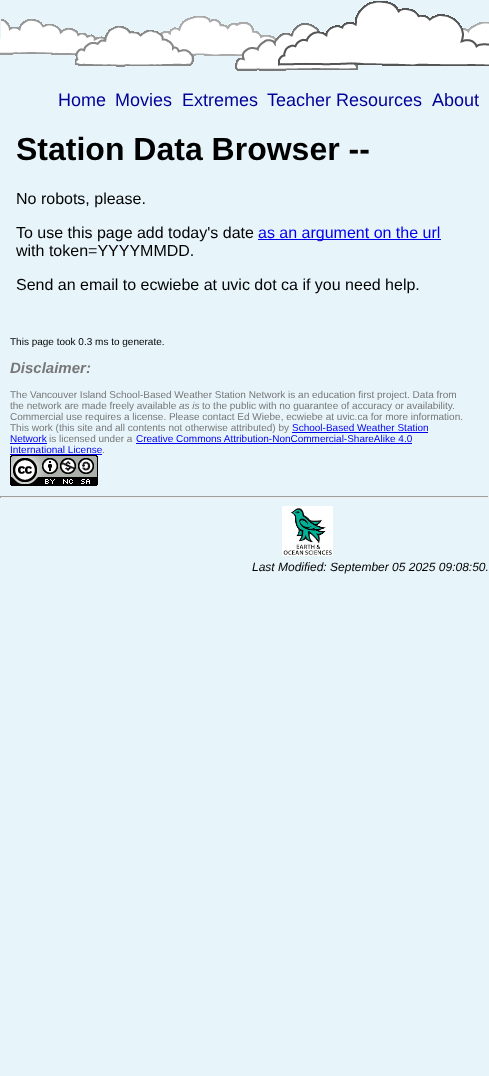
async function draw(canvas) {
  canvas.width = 489;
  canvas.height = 1076;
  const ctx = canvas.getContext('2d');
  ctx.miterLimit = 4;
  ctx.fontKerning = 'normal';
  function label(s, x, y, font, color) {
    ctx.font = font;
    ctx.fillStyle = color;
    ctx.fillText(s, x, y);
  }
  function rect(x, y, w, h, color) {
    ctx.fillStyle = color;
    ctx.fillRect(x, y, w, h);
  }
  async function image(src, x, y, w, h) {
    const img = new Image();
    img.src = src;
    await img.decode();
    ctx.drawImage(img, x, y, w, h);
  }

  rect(0, 0, 489, 1076, '#e7f5fb');
  await image('assets/img1.png', 0, 1, 489, 70);
  label('Home', 58, 106, '18px Liberation Sans', '#009');
  label('Movies', 115, 106, '18px Liberation Sans', '#009');
  label('Extremes', 182, 106, '18px Liberation Sans', '#009');
  label('Teacher Resources', 267, 106, '18px Liberation Sans', '#009');
  label('About', 432, 106, '18px Liberation Sans', '#009');
  label('Station Data Browser --', 16, 160, 'bold 32px Liberation Sans', '#000');
  label('No robots, please.', 16, 204, '16px Liberation Sans', '#000');
  label('To use this page add today\'s date', 16, 238, '16px Liberation Sans', '#000');
  rect(258, 239, 183, 1, '#00e');
  label('as an argument on the url', 258, 238, '16px Liberation Sans', '#00e');
  label('with token=YYYYMMDD.', 16, 256, '16px Liberation Sans', '#000');
  label('Send an email to ecwiebe at uvic dot ca if you need help.', 16, 290, '16px Liberation Sans', '#000');
  label('This page took 0.3 ms to generate.', 10, 345, '10px Liberation Sans', '#000');
  label('Disclaimer:', 10, 373, 'italic bold 15px Liberation Sans', '#777');
  label('The Vancouver Island School-Based Weather Station Network is an education first project. Data from', 10, 398, '10px Liberation Sans', '#777');
  label('the network are made freely available', 10, 409, '10px Liberation Sans', '#777');
  label('as is', 179, 409, 'italic 10px Liberation Sans', '#777');
  label('to the public with no guarantee of accuracy or availability.', 202, 409, '10px Liberation Sans', '#777');
  label('Commercial use requires a license. Please contact Ed Wiebe, ecwiebe at uvic.ca for more information.', 10, 420, '10px Liberation Sans', '#777');
  label('This work (this site and all contents not otherwise attributed) by', 10, 431, '10px Liberation Sans', '#777');
  label('School-Based Weather Station', 292, 431, '10px Liberation Sans', '#00e');
  rect(292, 432, 136, 1, '#00e');
  label('Network', 10, 442, '10px Liberation Sans', '#00e');
  rect(10, 443, 37, 1, '#00e');
  label('is licensed under a', 49, 442, '10px Liberation Sans', '#777');
  label('Creative Commons Attribution-NonCommercial-ShareAlike 4.0', 136, 442, '10px Liberation Sans', '#00e');
  rect(136, 443, 276, 1, '#00e');
  label('International License', 10, 453, '10px Liberation Sans', '#00e');
  rect(10, 454, 92, 1, '#00e');
  label('.', 102, 453, '10px Liberation Sans', '#777');
  await image('assets/img2.png', 10, 455, 88, 31);
  rect(0, 496, 489, 1, '#9f9f9f');
  rect(488, 496, 1, 2, '#eee');
  rect(0, 497, 489, 1, '#eee');
  rect(0, 496, 1, 2, '#9f9f9f');
  await image('assets/img3.png', 282, 506, 51, 50);
  label('Last Modified: September 05 2025 09:08:50.', 252, 571, 'italic 12px Liberation Sans', '#000');
}

draw(document.querySelector('canvas'));
